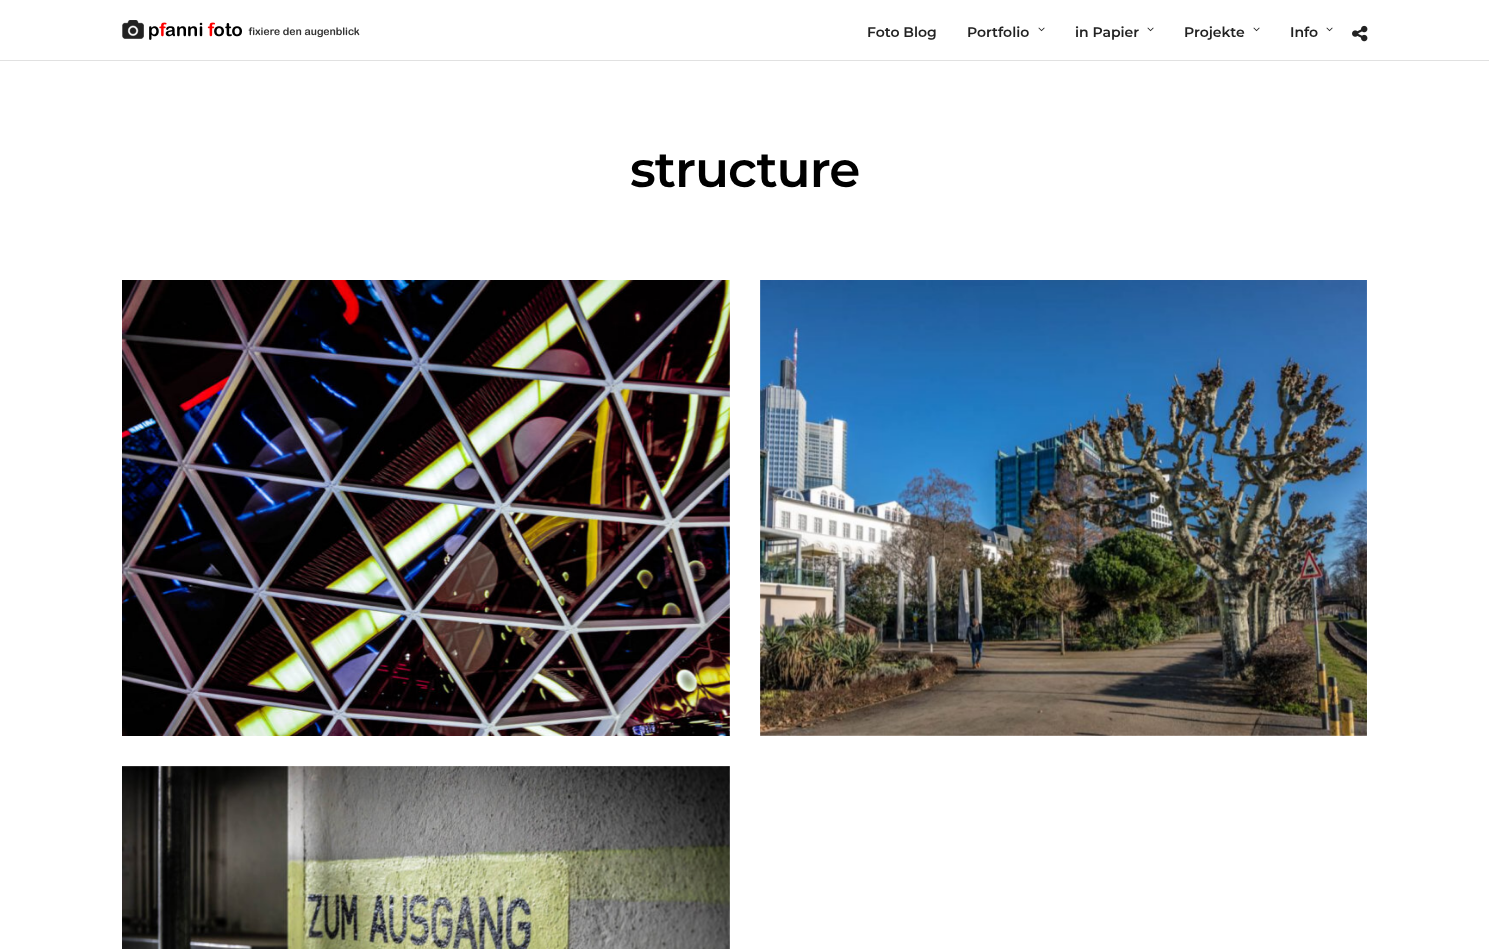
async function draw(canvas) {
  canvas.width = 1489;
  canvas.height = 949;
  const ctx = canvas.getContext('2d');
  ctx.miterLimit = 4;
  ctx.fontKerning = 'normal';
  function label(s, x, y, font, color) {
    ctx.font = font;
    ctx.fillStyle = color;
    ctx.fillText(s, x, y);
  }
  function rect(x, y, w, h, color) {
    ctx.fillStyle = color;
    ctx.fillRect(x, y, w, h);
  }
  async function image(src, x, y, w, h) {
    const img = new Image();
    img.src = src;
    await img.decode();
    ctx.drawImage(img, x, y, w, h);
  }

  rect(0, 0, 1489, 949, '#fff');
  rect(0, 60, 1489, 1, '#e1e1e1');
  await image('assets/img1.png', 122, 20, 238, 20);
  label('Foto Blog', 867, 37, '600 14px Montserrat', '#222');
  label('Portfolio', 967, 37, '600 14px Montserrat', '#222');
  await image('assets/img2.png', 1038, 27, 7, 5);
  label('in Papier', 1075, 37, '600 14px Montserrat', '#222');
  await image('assets/img2.png', 1147, 27, 7, 5);
  label('Projekte', 1184, 37, '600 14px Montserrat', '#222');
  await image('assets/img2.png', 1253, 27, 7, 5);
  label('Info', 1290, 37, '600 14px Montserrat', '#222');
  await image('assets/img2.png', 1326, 27, 7, 5);
  await image('assets/img3.png', 1352, 25, 16, 17);
  ctx.letterSpacing = '-1px';
  label('structure', 630, 187, '600 50px Montserrat', '#000');
  await image('assets/img4.png', 122, 280, 608, 456);
  await image('assets/img5.png', 760, 280, 607, 456);
  await image('assets/img6.png', 122, 766, 608, 183);
}

draw(document.querySelector('canvas'));
